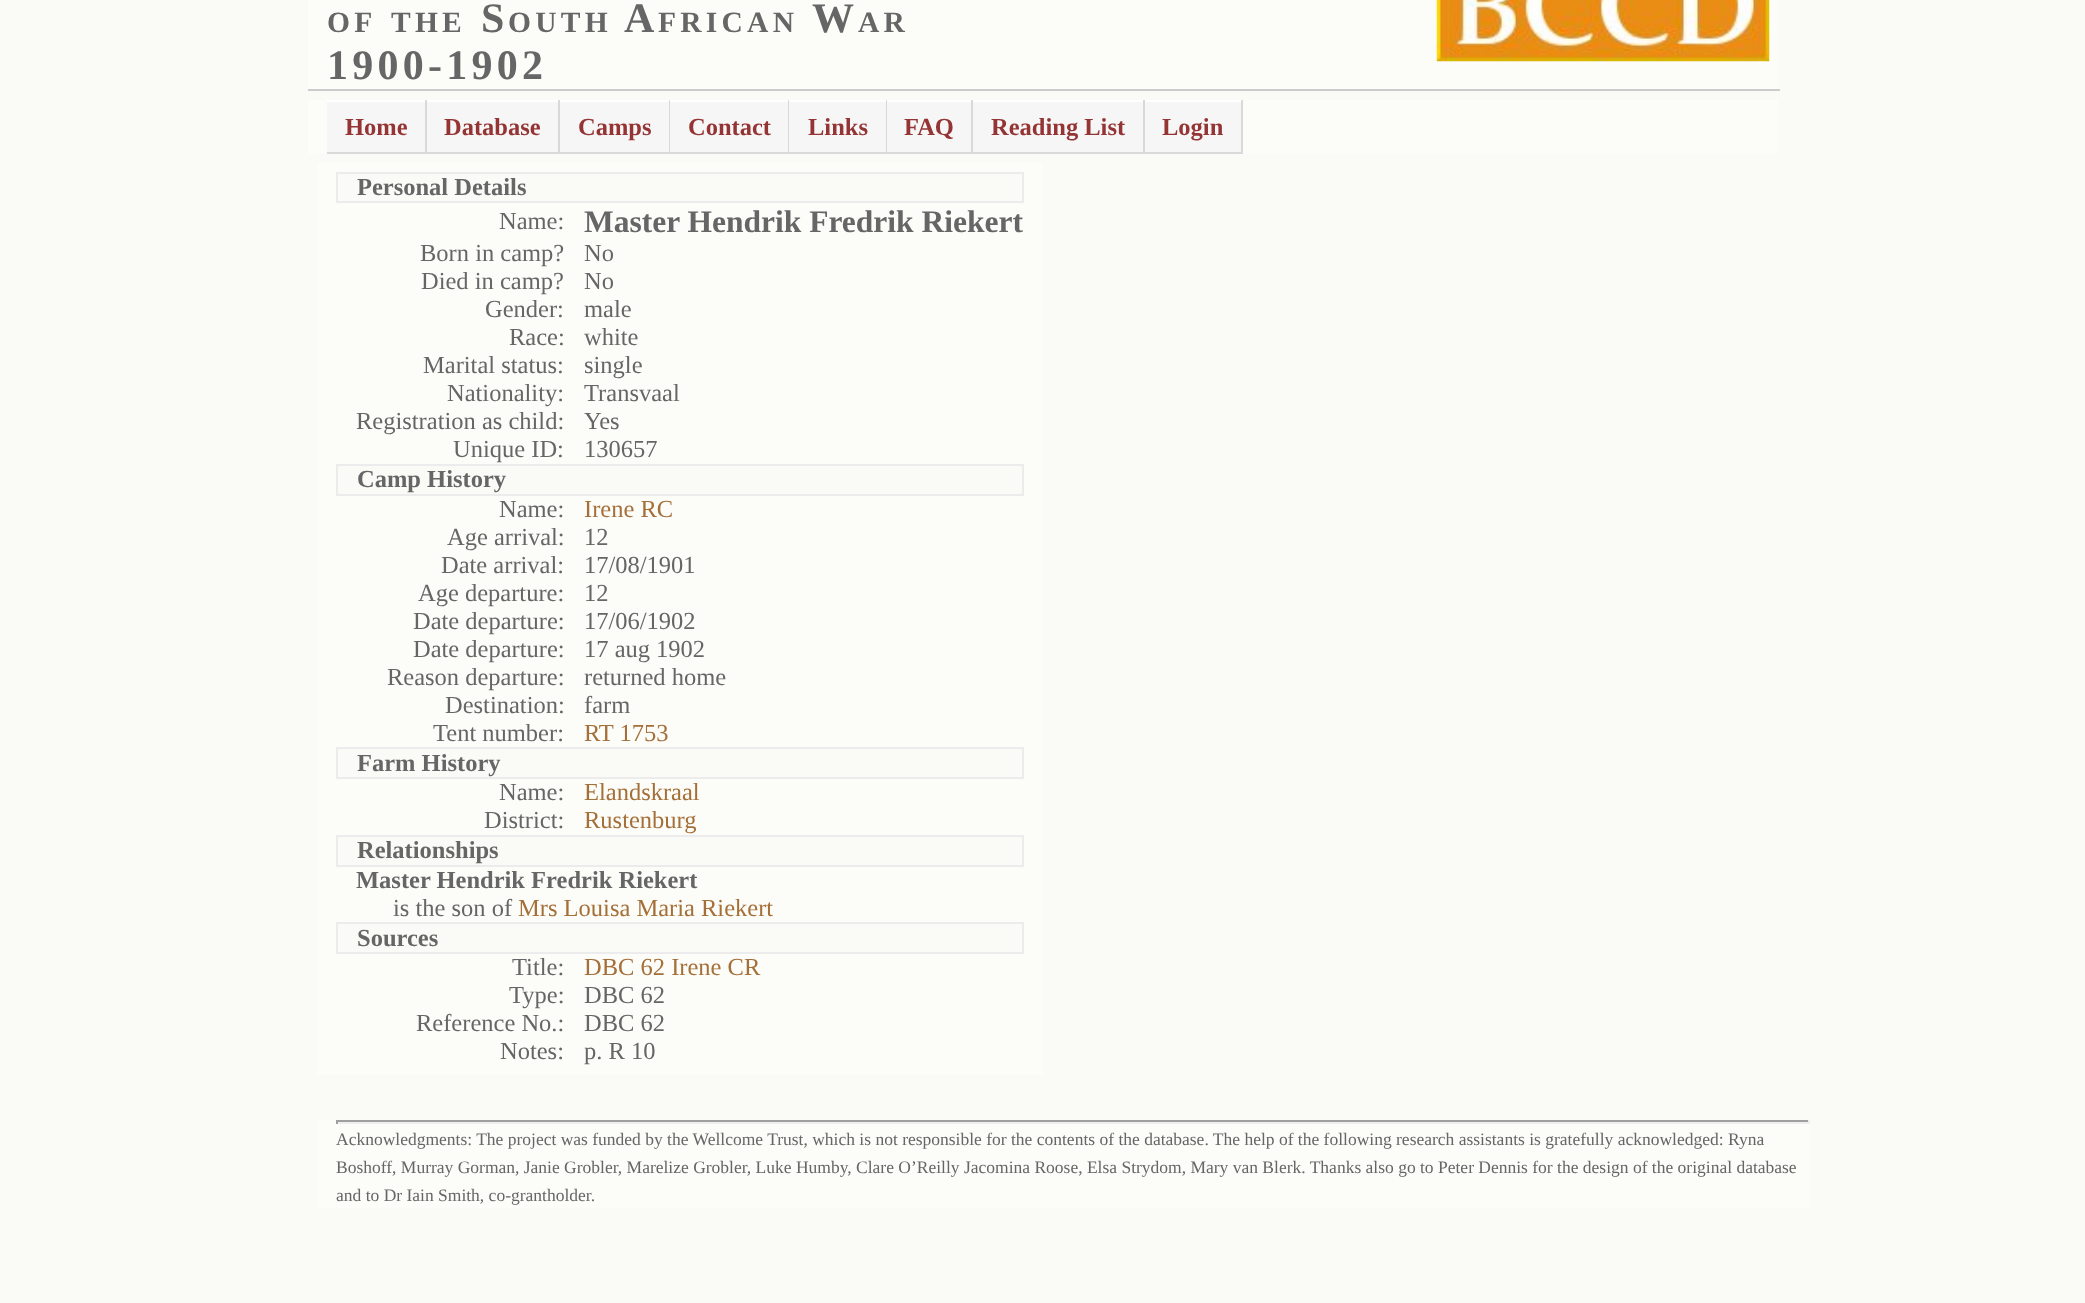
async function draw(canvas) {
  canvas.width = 2085;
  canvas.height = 1303;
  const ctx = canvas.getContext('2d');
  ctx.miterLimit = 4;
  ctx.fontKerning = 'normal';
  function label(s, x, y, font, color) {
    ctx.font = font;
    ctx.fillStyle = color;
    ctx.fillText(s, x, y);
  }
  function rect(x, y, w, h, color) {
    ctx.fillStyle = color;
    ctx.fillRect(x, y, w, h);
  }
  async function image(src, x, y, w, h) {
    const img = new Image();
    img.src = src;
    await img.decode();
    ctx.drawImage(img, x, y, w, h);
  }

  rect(0, 0, 2085, 1303, '#fafbf6');
  rect(308, 0, 1470, 89, '#fcfcf9');
  rect(308, 89, 1472, 2, '#ccc');
  ctx.letterSpacing = '4.25px';
  label('OF', 327, 32, 'bold 29.5px Liberation Serif', '#666');
  label('THE', 391, 32, 'bold 29.5px Liberation Serif', '#666');
  label('S', 481, 32, 'bold 42px Liberation Serif', '#666');
  label('OUTH', 508, 32, 'bold 29.5px Liberation Serif', '#666');
  label('A', 624, 32, 'bold 42px Liberation Serif', '#666');
  label('FRICAN', 658, 32, 'bold 29.5px Liberation Serif', '#666');
  label('W', 812, 32, 'bold 42px Liberation Serif', '#666');
  label('AR', 858, 32, 'bold 29.5px Liberation Serif', '#666');
  await image('assets/img1.png', 1436, 0, 334, 62);
  label('1900-1902', 327, 79, 'bold 42px Liberation Serif', '#666');
  rect(308, 100, 1470, 54, '#fcfcf9');
  rect(327, 102, 98, 50, '#f6f6f6');
  rect(327, 100, 916, 2, '#fff');
  rect(425, 100, 2, 54, '#d9d9d9');
  rect(327, 152, 100, 2, '#d9d9d9');
  ctx.letterSpacing = '0px';
  label('Home', 345, 135, 'bold 24.5px Liberation Serif', '#953434');
  rect(427, 102, 131, 50, '#f6f6f6');
  rect(558, 100, 2, 54, '#d9d9d9');
  rect(427, 152, 133, 2, '#d9d9d9');
  label('Database', 444, 135, 'bold 24.5px Liberation Serif', '#953434');
  rect(560, 102, 109, 50, '#f6f6f6');
  rect(669, 100, 1, 54, '#d9d9d9');
  rect(560, 152, 110, 2, '#d9d9d9');
  label('Camps', 578, 135, 'bold 24.5px Liberation Serif', '#953434');
  rect(670, 102, 118, 50, '#f6f6f6');
  rect(788, 100, 1, 54, '#d9d9d9');
  rect(670, 152, 119, 2, '#d9d9d9');
  label('Contact', 688, 135, 'bold 24.5px Liberation Serif', '#953434');
  rect(789, 102, 97, 50, '#f6f6f6');
  rect(886, 100, 1, 54, '#d9d9d9');
  rect(789, 152, 98, 2, '#d9d9d9');
  label('Links', 808, 135, 'bold 24.5px Liberation Serif', '#953434');
  rect(887, 102, 84, 50, '#f6f6f6');
  rect(971, 100, 2, 54, '#d9d9d9');
  rect(887, 152, 86, 2, '#d9d9d9');
  label('FAQ', 904, 135, 'bold 24.5px Liberation Serif', '#953434');
  rect(973, 102, 170, 50, '#f6f6f6');
  rect(1143, 100, 2, 54, '#d9d9d9');
  rect(973, 152, 172, 2, '#d9d9d9');
  label('Reading List', 991, 135, 'bold 24.5px Liberation Serif', '#953434');
  rect(1145, 102, 96, 50, '#f6f6f6');
  rect(1241, 100, 2, 54, '#d9d9d9');
  rect(1145, 152, 98, 2, '#d9d9d9');
  label('Login', 1162, 135, 'bold 24.5px Liberation Serif', '#953434');
  rect(317, 163, 726, 912, '#fcfcf9');
  rect(338, 174, 684, 27, '#fafbf6');
  rect(336, 172, 688, 2, '#ececec');
  rect(1022, 172, 2, 31, '#ececec');
  rect(336, 201, 688, 2, '#ececec');
  rect(336, 172, 2, 31, '#ececec');
  label('Personal Details', 357, 195, 'bold 24.5px Liberation Serif', '#666');
  label('Name:', 499, 229, '24.5px Liberation Serif', '#666');
  label('Master Hendrik Fredrik Riekert', 584, 232, 'bold 31.5px Liberation Serif', '#666');
  label('Born in camp?', 420, 261, '24.5px Liberation Serif', '#666');
  label('No', 584, 261, '24.5px Liberation Serif', '#666');
  label('Died in camp?', 421, 289, '24.5px Liberation Serif', '#666');
  label('No', 584, 289, '24.5px Liberation Serif', '#666');
  label('Gender:', 485, 317, '24.5px Liberation Serif', '#666');
  label('male', 584, 317, '24.5px Liberation Serif', '#666');
  label('Race:', 509, 345, '24.5px Liberation Serif', '#666');
  label('white', 584, 345, '24.5px Liberation Serif', '#666');
  label('Marital status:', 423, 373, '24.5px Liberation Serif', '#666');
  label('single', 584, 373, '24.5px Liberation Serif', '#666');
  label('Nationality:', 447, 401, '24.5px Liberation Serif', '#666');
  label('Transvaal', 584, 401, '24.5px Liberation Serif', '#666');
  label('Registration as child:', 356, 429, '24.5px Liberation Serif', '#666');
  label('Yes', 584, 429, '24.5px Liberation Serif', '#666');
  label('Unique ID:', 453, 457, '24.5px Liberation Serif', '#666');
  label('130657', 584, 457, '24.5px Liberation Serif', '#666');
  rect(338, 466, 684, 28, '#fafbf6');
  rect(336, 464, 688, 2, '#ececec');
  rect(1022, 464, 2, 31, '#ececec');
  rect(336, 494, 688, 2, '#ececec');
  rect(336, 464, 2, 31, '#ececec');
  label('Camp History', 357, 487, 'bold 24.5px Liberation Serif', '#666');
  label('Name:', 499, 517, '24.5px Liberation Serif', '#666');
  label('Irene RC', 584, 517, '24.5px Liberation Serif', '#a56f38');
  label('Age arrival:', 447, 545, '24.5px Liberation Serif', '#666');
  label('12', 584, 545, '24.5px Liberation Serif', '#666');
  label('Date arrival:', 441, 573, '24.5px Liberation Serif', '#666');
  label('17/08/1901', 584, 573, '24.5px Liberation Serif', '#666');
  label('Age departure:', 418, 601, '24.5px Liberation Serif', '#666');
  label('12', 584, 601, '24.5px Liberation Serif', '#666');
  label('Date departure:', 413, 629, '24.5px Liberation Serif', '#666');
  label('17/06/1902', 584, 629, '24.5px Liberation Serif', '#666');
  label('Date departure:', 413, 657, '24.5px Liberation Serif', '#666');
  label('17 aug 1902', 584, 657, '24.5px Liberation Serif', '#666');
  label('Reason departure:', 387, 685, '24.5px Liberation Serif', '#666');
  label('returned home', 584, 685, '24.5px Liberation Serif', '#666');
  label('Destination:', 445, 713, '24.5px Liberation Serif', '#666');
  label('farm', 584, 713, '24.5px Liberation Serif', '#666');
  label('Tent number:', 433, 741, '24.5px Liberation Serif', '#666');
  label('RT 1753', 584, 741, '24.5px Liberation Serif', '#a56f38');
  rect(338, 749, 684, 28, '#fafbf6');
  rect(336, 747, 688, 2, '#ececec');
  rect(1022, 747, 2, 32, '#ececec');
  rect(336, 777, 688, 2, '#ececec');
  rect(336, 747, 2, 32, '#ececec');
  label('Farm History', 357, 771, 'bold 24.5px Liberation Serif', '#666');
  label('Name:', 499, 800, '24.5px Liberation Serif', '#666');
  label('Elandskraal', 584, 800, '24.5px Liberation Serif', '#a56f38');
  label('District:', 484, 828, '24.5px Liberation Serif', '#666');
  label('Rustenburg', 584, 828, '24.5px Liberation Serif', '#a56f38');
  rect(338, 837, 684, 28, '#fafbf6');
  rect(336, 835, 688, 2, '#ececec');
  rect(1022, 835, 2, 31, '#ececec');
  rect(336, 865, 688, 2, '#ececec');
  rect(336, 835, 2, 31, '#ececec');
  label('Relationships', 357, 858, 'bold 24.5px Liberation Serif', '#666');
  label('Master Hendrik Fredrik Riekert', 356, 888, 'bold 24.5px Liberation Serif', '#666');
  label('is the son of', 393, 916, '24.5px Liberation Serif', '#666');
  label('Mrs Louisa Maria Riekert', 518, 916, '24.5px Liberation Serif', '#a56f38');
  rect(338, 924, 684, 28, '#fafbf6');
  rect(336, 922, 688, 2, '#ececec');
  rect(1022, 922, 2, 32, '#ececec');
  rect(336, 952, 688, 2, '#ececec');
  rect(336, 922, 2, 32, '#ececec');
  label('Sources', 357, 946, 'bold 24.5px Liberation Serif', '#666');
  label('Title:', 512, 975, '24.5px Liberation Serif', '#666');
  label('DBC 62 Irene CR', 584, 975, '24.5px Liberation Serif', '#a56f38');
  label('Type:', 509, 1003, '24.5px Liberation Serif', '#666');
  label('DBC 62', 584, 1003, '24.5px Liberation Serif', '#666');
  label('Reference No.:', 416, 1031, '24.5px Liberation Serif', '#666');
  label('DBC 62', 584, 1031, '24.5px Liberation Serif', '#666');
  label('Notes:', 500, 1059, '24.5px Liberation Serif', '#666');
  label('p. R 10', 584, 1059, '24.5px Liberation Serif', '#666');
  rect(317, 1120, 1493, 88, '#fcfcf9');
  rect(336, 1120, 1474, 2, '#9f9f9f');
  rect(1808, 1120, 2, 4, '#eee');
  rect(336, 1122, 1474, 2, '#eee');
  rect(336, 1120, 2, 4, '#9f9f9f');
  label('Acknowledgments: The project was funded by the Wellcome Trust, which is not responsible for the contents of the database. The help of the following research assistants is gratefully acknowledged: Ryna', 336, 1145, '17.5px Liberation Serif', '#666');
  label('Boshoff, Murray Gorman, Janie Grobler, Marelize Grobler, Luke Humby, Clare O’Reilly Jacomina Roose, Elsa Strydom, Mary van Blerk. Thanks also go to Peter Dennis for the design of the original database', 336, 1173, '17.5px Liberation Serif', '#666');
  label('and to Dr Iain Smith, co-grantholder.', 336, 1201, '17.5px Liberation Serif', '#666');
}

draw(document.querySelector('canvas'));
